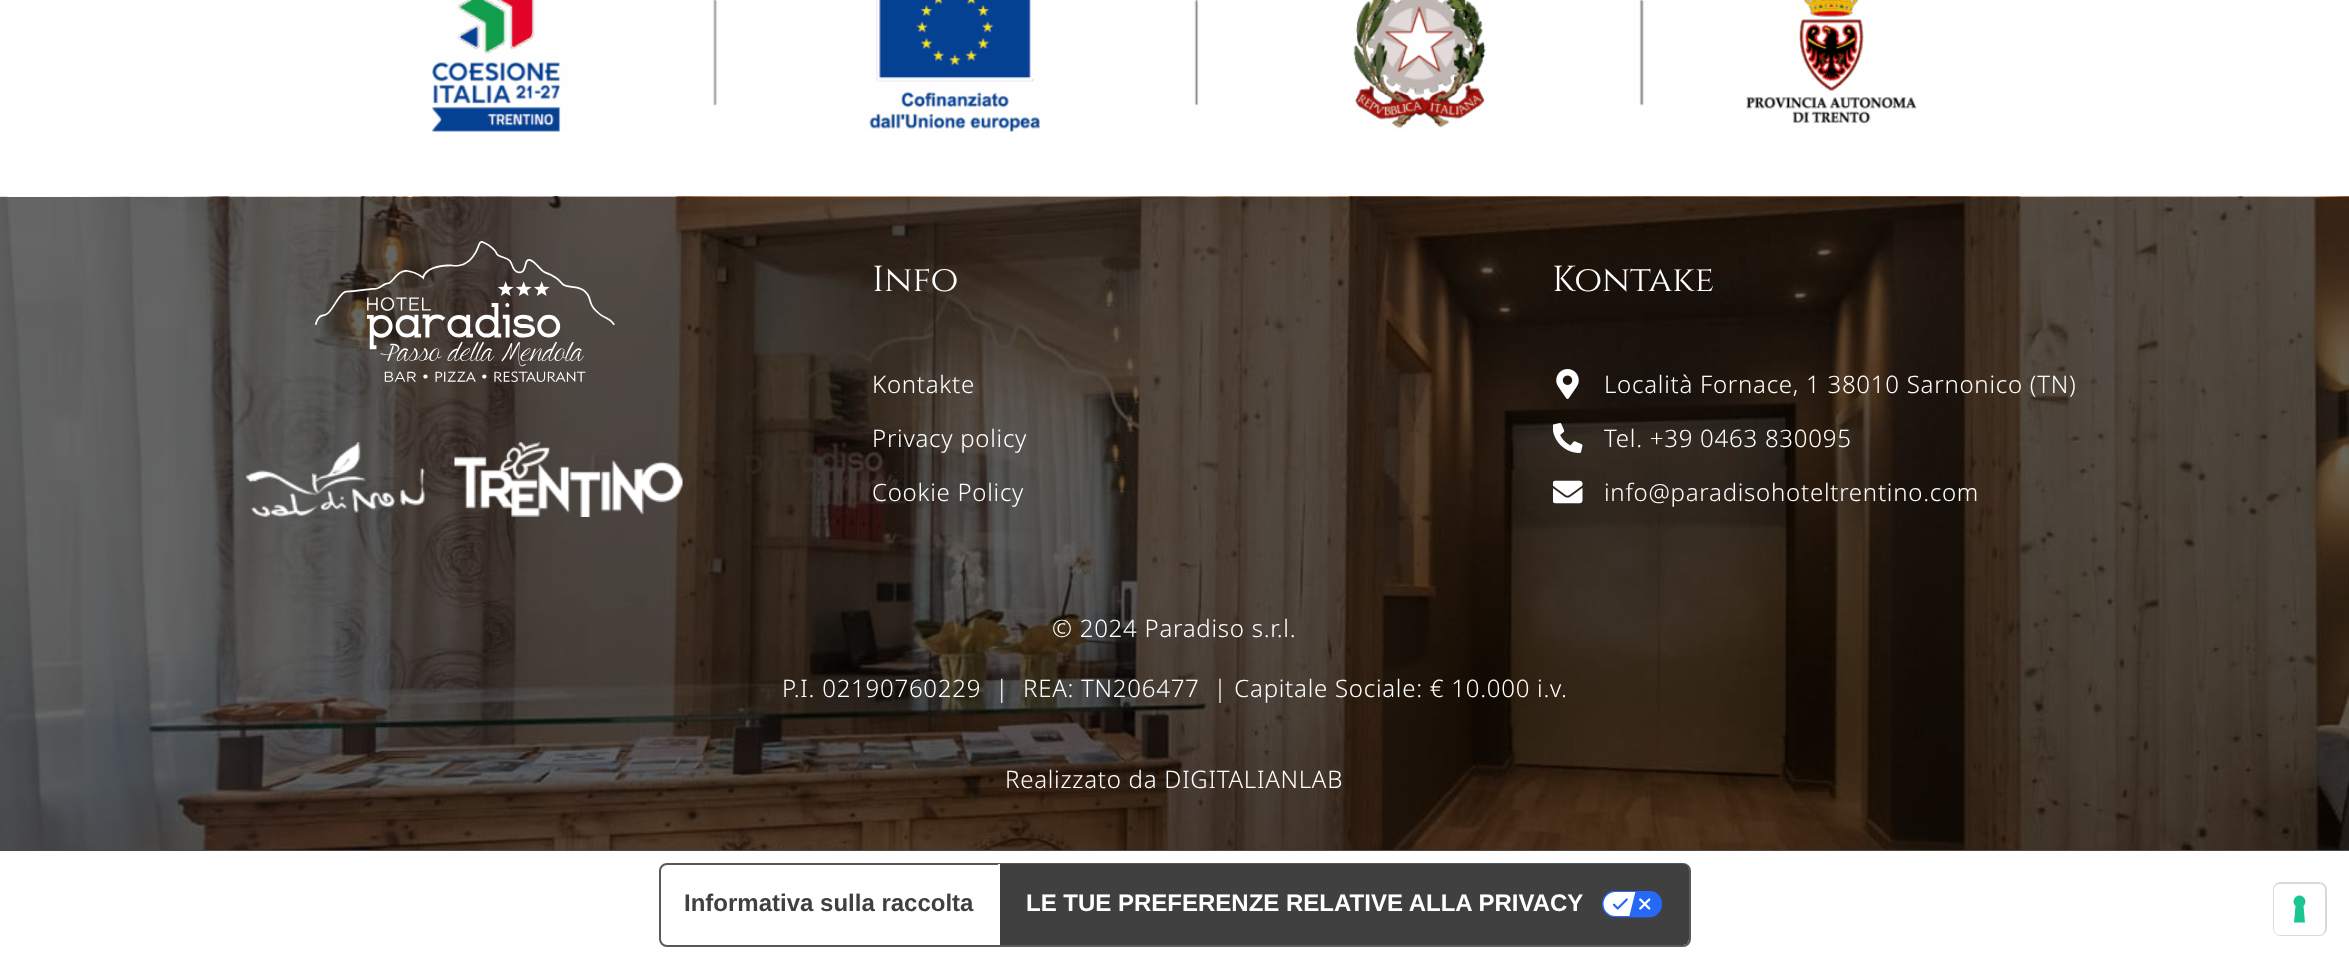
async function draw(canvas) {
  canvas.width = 2349;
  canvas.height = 958;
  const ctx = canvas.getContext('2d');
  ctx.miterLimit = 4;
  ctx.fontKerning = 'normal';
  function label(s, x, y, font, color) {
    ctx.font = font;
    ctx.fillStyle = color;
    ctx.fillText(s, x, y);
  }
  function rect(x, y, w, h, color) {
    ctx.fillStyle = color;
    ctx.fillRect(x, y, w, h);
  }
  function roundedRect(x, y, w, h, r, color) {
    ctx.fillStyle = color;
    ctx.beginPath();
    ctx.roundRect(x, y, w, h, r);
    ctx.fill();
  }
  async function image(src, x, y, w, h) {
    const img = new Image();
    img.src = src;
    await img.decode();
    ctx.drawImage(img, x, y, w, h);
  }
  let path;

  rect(0, 0, 2349, 958, '#fff');
  await image('assets/img1.png', 431, 0, 1486, 132);
  rect(0, 850, 2349, 1, '#474747');
  await image('assets/img2.png', 0, 196, 2349, 654);
  await image('assets/img3.png', 315, 241, 300, 141);
  await image('assets/img4.png', 246, 442, 179, 75);
  await image('assets/img5.png', 454, 442, 229, 75);
  label('Info', 872, 291, '36px Cinzel', '#fff');
  label('Kontake', 1552, 291, '36px Cinzel', '#fff');
  ctx.letterSpacing = '0.75px';
  label('Kontakte', 872, 393, '300 24px Noto Sans', '#fff');
  label('Privacy policy', 872, 447, '300 24px Noto Sans', '#fff');
  label('Cookie Policy', 872, 501, '300 24px Noto Sans', '#fff');
  await image('assets/img6.png', 1556, 369, 23, 30);
  label('Località Fornace, 1 38010 Sarnonico (TN)', 1604, 393, '300 24px Noto Sans', '#fff');
  await image('assets/img7.png', 1553, 423, 30, 30);
  label('Tel. +39 0463 830095', 1604, 447, '300 24px Noto Sans', '#fff');
  await image('assets/img8.png', 1553, 480, 30, 24);
  label('info@paradisohoteltrentino.com', 1604, 501, '300 24px Noto Sans', '#fff');
  label('© 2024 Paradiso s.r.l.', 1052, 637, '300 24px Noto Sans', '#fff');
  label('P.I. 02190760229  |', 782, 697, '300 24px Noto Sans', '#fff');
  label('REA: TN206477  | Capitale Sociale: € 10.000 i.v.', 1023, 697, '300 24px Noto Sans', '#fff');
  label('Realizzato da DIGITALIANLAB', 1005, 788, '300 24px Noto Sans', '#fff');
  ctx.beginPath();
  ctx.roundRect(660, 864, 1030, 82, 7);
  ctx.strokeStyle = '#595959';
  ctx.lineWidth = 2;
  ctx.stroke();
  ctx.letterSpacing = '0px';
  label('Informativa sulla raccolta', 684, 911, 'bold 24px Liberation Sans', '#404040');
  ctx.beginPath();
  ctx.roundRect(998, 864, 691, 81, [0, 6, 6, 0]);
  ctx.fill();
  rect(998, 864, 2, 81, '#fff');
  label('LE TUE PREFERENZE RELATIVE ALLA PRIVACY', 1026, 911, 'bold 24px Liberation Sans', '#fff');
  await image('assets/img9.png', 1602, 891, 60, 27);
  ctx.beginPath();
  ctx.roundRect(2274, 883, 52, 52, 7);
  ctx.strokeStyle = '#d9d9d9';
  ctx.stroke();
  roundedRect(2274, 884, 51, 51, 6, '#fff');
  ctx.fillStyle = '#1cc691';
  path = new Path2D('M2299.5 895.5C2305 895.5 2307.5 902.5 2303.5 906L2305 922.5H2294L2295.5 906C2291.5 902.5 2294 895.5 2299.5 895.5Z');
  ctx.fill(path, 'evenodd');
}

draw(document.querySelector('canvas'));
